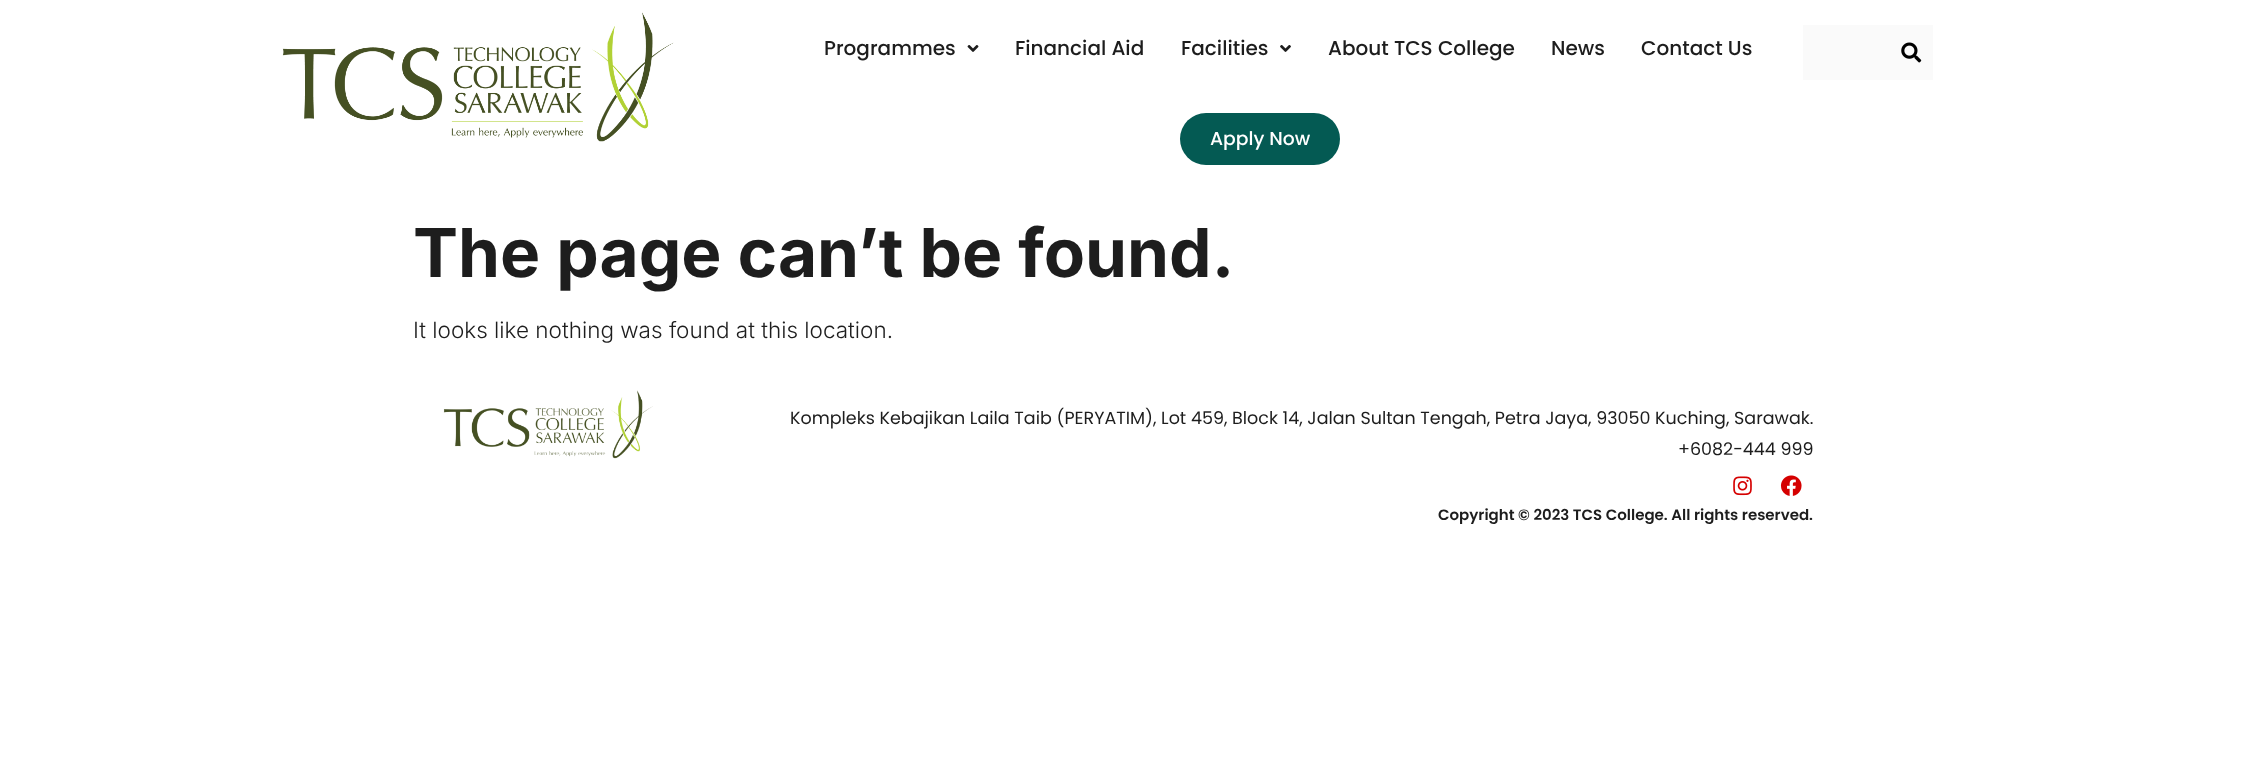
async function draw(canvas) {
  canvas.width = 2251;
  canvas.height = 776;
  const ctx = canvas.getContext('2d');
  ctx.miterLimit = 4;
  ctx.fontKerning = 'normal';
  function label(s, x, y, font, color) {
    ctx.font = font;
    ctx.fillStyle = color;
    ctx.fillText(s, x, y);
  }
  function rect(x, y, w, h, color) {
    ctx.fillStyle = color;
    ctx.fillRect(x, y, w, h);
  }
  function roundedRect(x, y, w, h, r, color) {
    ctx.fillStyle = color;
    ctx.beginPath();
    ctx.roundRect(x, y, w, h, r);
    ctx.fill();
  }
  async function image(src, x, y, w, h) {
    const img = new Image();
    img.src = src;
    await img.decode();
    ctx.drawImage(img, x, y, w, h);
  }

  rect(0, 0, 2251, 776, '#fff');
  await image('assets/img1.png', 282, 12, 392, 130);
  label('Programmes', 824, 55, '500 20px Poppins', '#1d1d1d');
  await image('assets/img2.png', 967, 45, 12, 7);
  label('Financial Aid', 1015, 55, '500 20px Poppins', '#1d1d1d');
  label('Facilities', 1181, 55, '500 20px Poppins', '#1d1d1d');
  await image('assets/img3.png', 1280, 45, 11, 7);
  label('About TCS College', 1328, 55, '500 20px Poppins', '#1d1d1d');
  label('News', 1551, 55, '500 20px Poppins', '#1d1d1d');
  label('Contact Us', 1641, 55, '500 20px Poppins', '#1d1d1d');
  roundedRect(1180, 113, 160, 52, 26, '#045a53');
  label('Apply Now', 1210, 145, '500 18.75px Poppins', '#fff');
  rect(1803, 25, 130, 55, '#fafafa');
  await image('assets/img4.png', 1901, 42, 21, 21);
  label('The page can’t be found.', 413, 277, 'bold 67.5px Inter', '#1d1d1d');
  label('It looks like nothing was found at this location.', 413, 338, '300 22.5px Inter', '#1d1d1d');
  await image('assets/img5.png', 443, 390, 210, 69);
  label('Kompleks Kebajikan Laila Taib (PERYATIM), Lot 459, Block 14, Jalan Sultan Tengah, Petra Jaya, 93050 Kuching, Sarawak.', 790, 424, '17.5px Poppins', '#1d1d1d');
  label('+6082-444 999', 1678, 455, '17.5px Poppins', '#1d1d1d');
  await image('assets/img6.png', 1733, 476, 19, 20);
  await image('assets/img7.png', 1780, 475, 22, 21);
  label('Copyright © 2023 TCS College. All rights reserved.', 1438, 520, '600 15px Poppins', '#1d1d1d');
}

draw(document.querySelector('canvas'));
